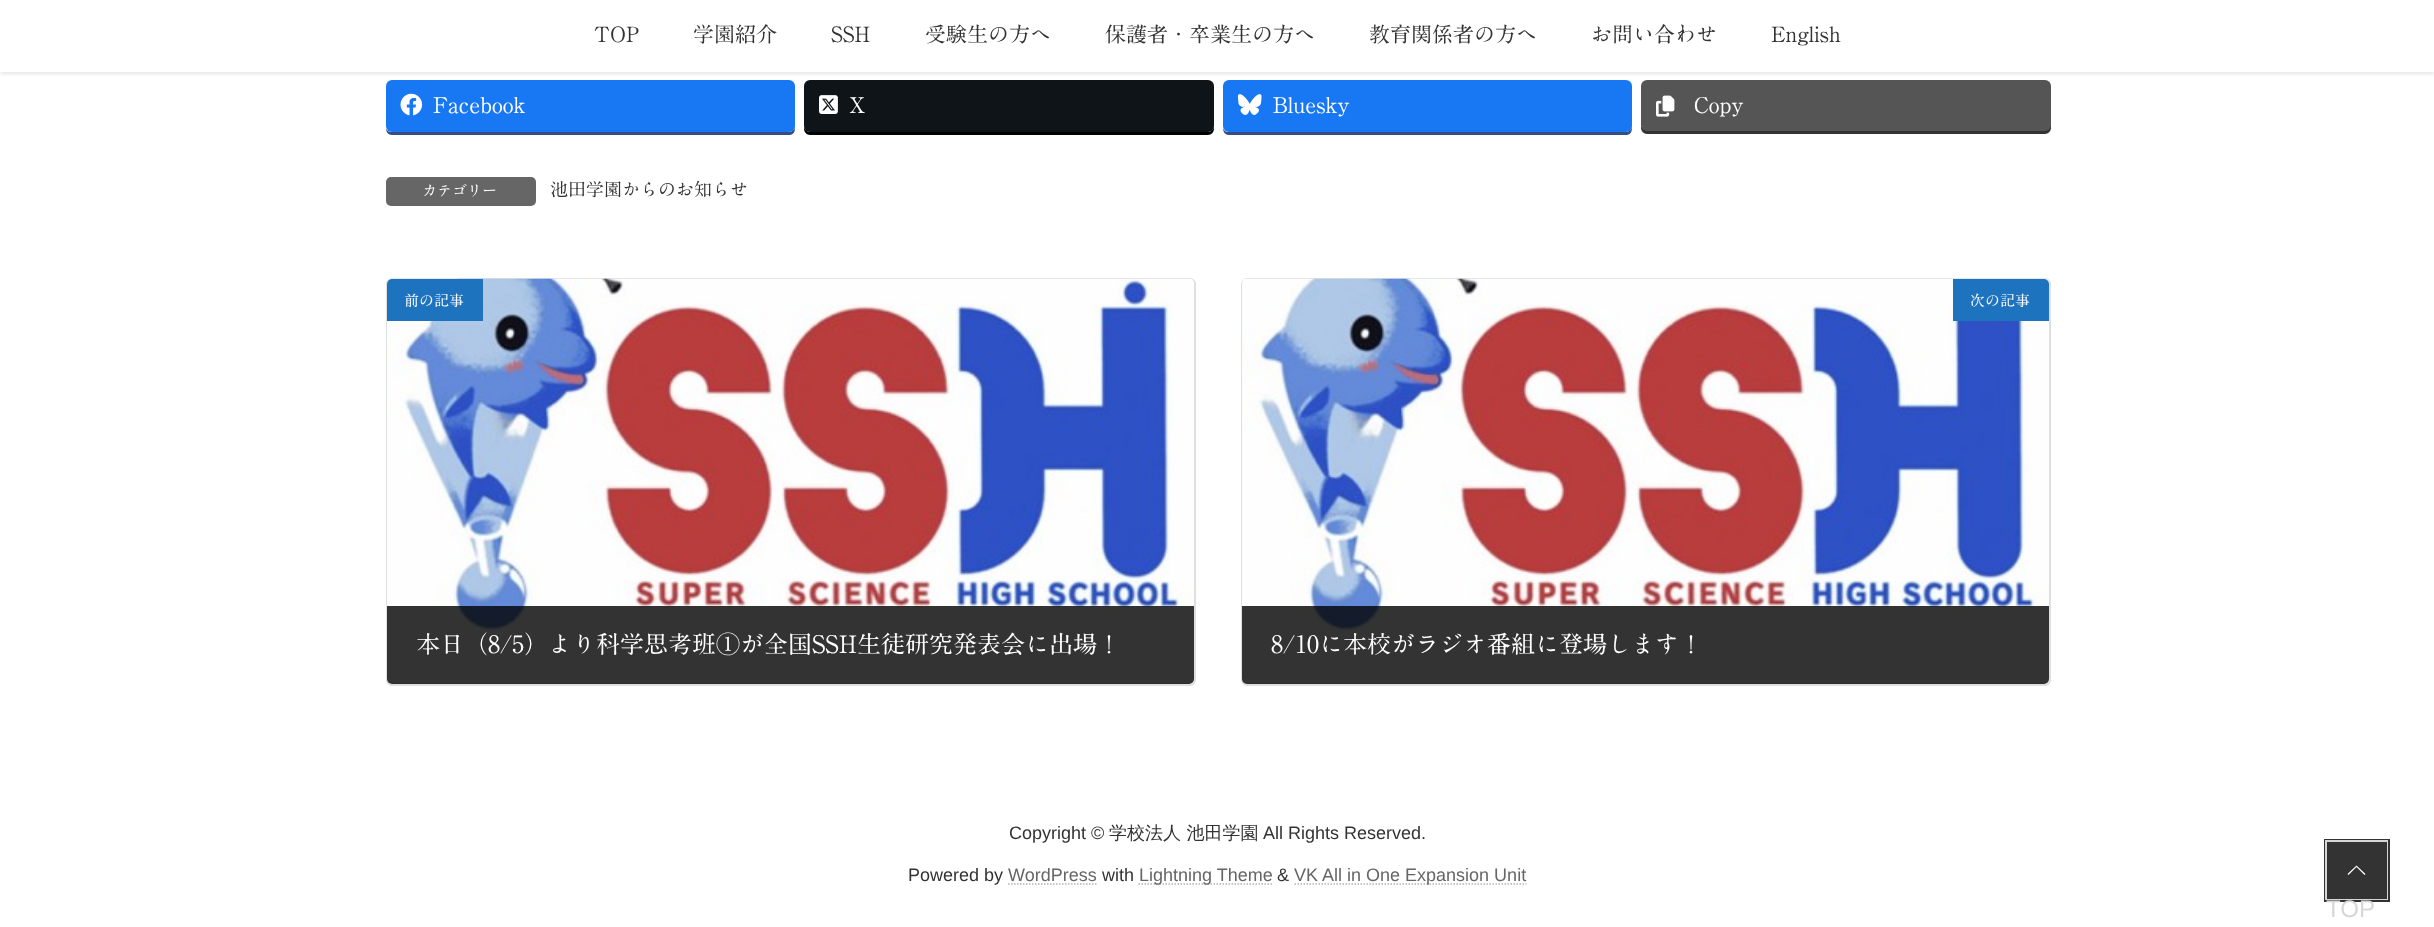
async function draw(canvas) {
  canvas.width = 2434;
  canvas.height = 927;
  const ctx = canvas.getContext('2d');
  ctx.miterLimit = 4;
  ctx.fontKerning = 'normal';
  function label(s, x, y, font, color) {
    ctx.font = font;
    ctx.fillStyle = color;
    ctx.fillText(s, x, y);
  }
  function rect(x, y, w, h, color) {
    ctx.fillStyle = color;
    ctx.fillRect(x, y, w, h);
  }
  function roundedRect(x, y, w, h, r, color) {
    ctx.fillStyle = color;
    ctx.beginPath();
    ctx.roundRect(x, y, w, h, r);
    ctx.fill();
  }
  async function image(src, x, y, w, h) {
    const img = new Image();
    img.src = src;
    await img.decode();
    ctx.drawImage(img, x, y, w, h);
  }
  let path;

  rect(0, 0, 2434, 927, '#fff');
  ctx.fillStyle = '#344e84';
  path = new Path2D('M386 128C386 132 388 135 392 135H790C795 134 795 130 795 126C795 129 792 132 789 132H392C389 132 387 131 386 128Z');
  ctx.fill(path);
  roundedRect(386, 80, 409, 52, 6, '#1877f2');
  ctx.fillStyle = '#000';
  path = new Path2D('M804 126V129C804 132 807 135 810 135H1208C1211 135 1214 132 1214 129V89V87V126C1214 129 1211 132 1208 132H810C807 132 804 129 804 126Z');
  ctx.fill(path);
  roundedRect(804, 80, 410, 52, 6, '#0f1419');
  ctx.fillStyle = '#344e84';
  path = new Path2D('M1223 128C1223 132 1225 135 1229 135H1627C1632 134 1632 130 1632 126C1632 129 1629 132 1626 132H1228C1226 132 1224 131 1223 128Z');
  ctx.fill(path);
  roundedRect(1223, 80, 409, 52, 6, '#1877f2');
  ctx.fillStyle = '#333';
  path = new Path2D('M1641 124V128C1641 131 1644 134 1647 134H2045C2048 134 2051 131 2051 128V89L2050 87V124C2050 128 2048 130 2044 130H1647C1644 130 1641 128 1641 124Z');
  ctx.fill(path);
  roundedRect(1641, 80, 410, 51, 6, '#555');
  ctx.save();
  ctx.beginPath();
  ctx.rect(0, 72, 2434, 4);
  ctx.clip();
  ctx.fillStyle = '#0000001a';
  ctx.filter = 'blur(2px)';
  ctx.beginPath();
  ctx.rect(0, 2, 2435, 72);
  ctx.fill();
  ctx.filter = 'none';
  ctx.restore();
  label('TOP', 594, 42, '21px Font', '#333');
  label('学園紹介', 693, 42, '21px Font', '#333');
  label('SSH', 831, 42, '21px Font', '#333');
  label('受験生の方へ', 925, 42, '21px Font', '#333');
  label('保護者・卒業生の方へ', 1105, 42, '21px Font', '#333');
  label('教育関係者の方へ', 1369, 42, '21px Font', '#333');
  label('お問い合わせ', 1591, 42, '21px Font', '#333');
  label('English', 1771, 42, '21px Font', '#333');
  await image('assets/img1.png', 400, 93, 23, 23);
  label('Facebook', 433, 113, '21.5px Font', '#fff');
  await image('assets/img2.png', 819, 95, 19, 19);
  label('X', 849, 113, '21.5px Font', '#fff');
  await image('assets/img3.png', 1237, 94, 25, 21);
  label('Bluesky', 1273, 113, '21.5px Font', '#fff');
  await image('assets/img4.png', 1656, 95, 19, 22);
  label('Copy', 1694, 113, '21.5px Font', '#fff');
  roundedRect(386, 177, 150, 29, 5, '#666');
  label('カテゴリー', 422, 196, '15px Font', '#fff');
  label('池田学園からのお知らせ', 550, 196, '18px Font', '#333');
  ctx.beginPath();
  ctx.roundRect(387, 279, 808, 406, 5);
  ctx.strokeStyle = '#dfdfdf';
  ctx.lineWidth = 2;
  ctx.stroke();
  await image('assets/img5.png', 387, 278, 807, 405);
  ctx.save();
  ctx.beginPath();
  ctx.roundRect(387, 279, 807, 405, 5);
  ctx.clip();
  rect(387, 683, 807, 1, '#e5e5e5');
  ctx.restore();
  ctx.fillStyle = '#1e73be';
  ctx.beginPath();
  ctx.roundRect(387, 279, 96, 42, [5, 0, 0, 0]);
  ctx.fill();
  label('前の記事', 404, 306, '15px Font', '#fff');
  ctx.fillStyle = '#000000cc';
  ctx.beginPath();
  ctx.roundRect(387, 606, 807, 78, [0, 0, 5, 5]);
  ctx.fill();
  label('本日（8/5）より科学思考班①が全国SSH生徒研究発表会に出場！', 416, 653, '24px Font', '#fff');
  ctx.beginPath();
  ctx.roundRect(1242, 279, 808, 406, 5);
  ctx.stroke();
  await image('assets/img5.png', 1242, 278, 807, 405);
  ctx.save();
  ctx.beginPath();
  ctx.roundRect(1242, 279, 807, 405, 5);
  ctx.clip();
  rect(1242, 683, 807, 1, '#e5e5e5');
  ctx.restore();
  ctx.fillStyle = '#1e73be';
  ctx.beginPath();
  ctx.roundRect(1953, 279, 96, 42, [0, 5, 0, 0]);
  ctx.fill();
  label('次の記事', 1970, 306, '15px Font', '#fff');
  ctx.fillStyle = '#000000cc';
  ctx.beginPath();
  ctx.roundRect(1242, 606, 807, 78, [0, 0, 5, 5]);
  ctx.fill();
  label('8/10に本校がラジオ番組に登場します！', 1271, 653, '24px Font', '#fff');
  label('Copyright ©', 1009, 839, '18px Liberation Sans', '#333');
  label('学校法人 池田学園', 1109, 839, '500 18px WenQuanYi Zen Hei', '#333');
  label('All Rights Reserved.', 1263, 839, '18px Liberation Sans', '#333');
  label('Powered by', 908, 881, '18px Liberation Sans', '#333');
  label('WordPress', 1008, 881, '18px Liberation Sans', '#666');
  path = new Path2D('M1008 884H1096.5');
  ctx.strokeStyle = '#b3b3b3';
  ctx.lineWidth = 1.5;
  ctx.setLineDash([1.5, 1.5]);
  ctx.stroke(path);
  label('with', 1102, 881, '18px Liberation Sans', '#333');
  path = new Path2D('M1138.5 884H1272.5');
  ctx.stroke(path);
  label('Lightning Theme', 1139, 881, '18px Liberation Sans', '#666');
  label('&', 1277, 881, '18px Liberation Sans', '#333');
  path = new Path2D('M1294.5 884H1526.5');
  ctx.stroke(path);
  label('VK All in One Expansion Unit', 1294, 881, '18px Liberation Sans', '#666');
  ctx.strokeStyle = '#333';
  ctx.lineWidth = 3;
  ctx.setLineDash([]);
  ctx.strokeRect(2325.5, 840.5, 63, 60);
  ctx.strokeStyle = '#ffffffcc';
  ctx.lineWidth = 2;
  ctx.strokeRect(2326, 841, 61, 58);
  rect(2327, 842, 60, 57, '#333');
  ctx.fillStyle = '#fff';
  path = new Path2D('M2365.5 874L2364.5 875L2356.5 867L2348.5 875L2347.5 874L2356.5 865.5Z');
  ctx.fill(path);
  label('TOP', 2326, 917, '24px Liberation Sans', '#d6d6d6');
}

draw(document.querySelector('canvas'));
